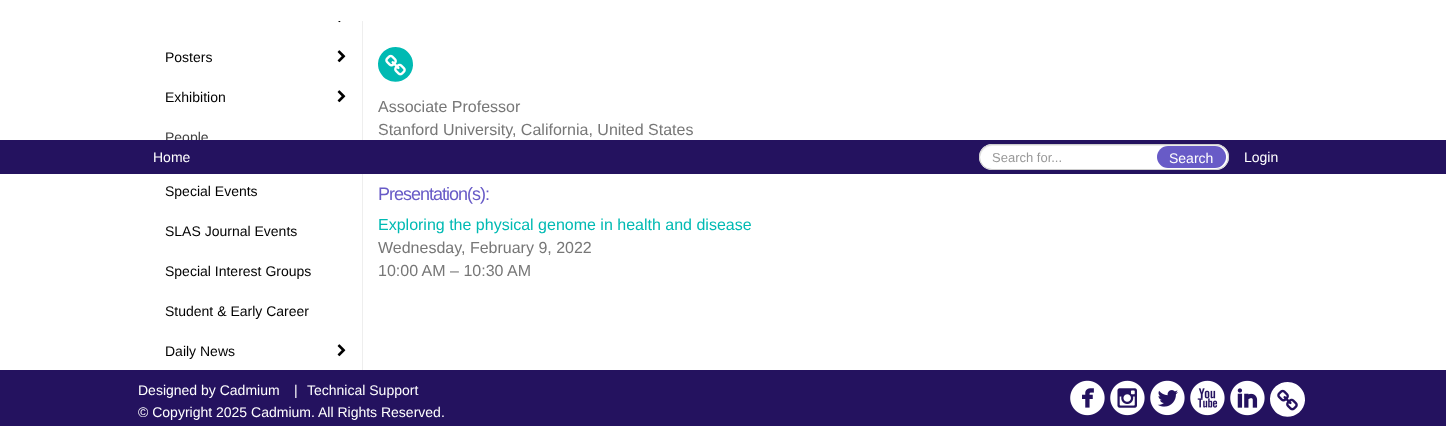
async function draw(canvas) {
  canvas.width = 1446;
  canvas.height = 426;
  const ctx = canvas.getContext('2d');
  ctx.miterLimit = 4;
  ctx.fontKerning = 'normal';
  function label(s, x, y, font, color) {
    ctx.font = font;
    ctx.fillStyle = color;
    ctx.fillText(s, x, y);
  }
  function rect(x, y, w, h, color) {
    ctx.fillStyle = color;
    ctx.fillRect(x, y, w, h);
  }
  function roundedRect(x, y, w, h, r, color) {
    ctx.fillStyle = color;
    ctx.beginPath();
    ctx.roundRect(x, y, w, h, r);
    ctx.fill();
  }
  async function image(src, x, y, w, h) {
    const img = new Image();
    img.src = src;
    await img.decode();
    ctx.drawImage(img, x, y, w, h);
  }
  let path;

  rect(0, 0, 1446, 426, '#fff');
  rect(362, 21, 1, 349, '#eee');
  await image('assets/img1.png', 338, 21, 3, 2);
  label('Posters', 165, 62, '14px Liberation Sans', '#000');
  await image('assets/img2.png', 337, 50, 9, 13);
  label('Exhibition', 165, 102, '14px Liberation Sans', '#000');
  await image('assets/img2.png', 337, 90, 9, 13);
  label('People', 165, 142, '14px Liberation Sans', '#404040');
  label('Special Events', 165, 196, '14px Liberation Sans', '#000');
  label('SLAS Journal Events', 165, 236, '14px Liberation Sans', '#000');
  label('Special Interest Groups', 165, 276, '14px Liberation Sans', '#000');
  label('Student & Early Career', 165, 316, '14px Liberation Sans', '#000');
  label('Daily News', 165, 356, '14px Liberation Sans', '#000');
  await image('assets/img2.png', 337, 344, 9, 13);
  ctx.fillStyle = '#00bab3';
  path = new Path2D('M410.5 55.5C412.5 58.5 413 62 413 65.5C412 82.5 389 88 380.5 73C378.5 70 378 67 378 63.5C379 46 402 41 410.5 55.5Z');
  ctx.fill(path);
  await image('assets/img3.png', 385, 54, 21, 22);
  label('Associate Professor', 378, 112, '16px Liberation Sans', '#777');
  label('Stanford University, California, United States', 378, 135, '16px Liberation Sans', '#777');
  ctx.letterSpacing = '-1px';
  label('Presentation(s):', 378, 200, '18px Liberation Sans', '#685bc7');
  ctx.letterSpacing = '0px';
  label('Exploring the physical genome in health and disease', 378, 230, '16px Liberation Sans', '#00bab3');
  label('Wednesday, February 9, 2022', 378, 253, '16px Liberation Sans', '#777');
  label('10:00 AM – 10:30 AM', 378, 276, '16px Liberation Sans', '#777');
  rect(0, 140, 1446, 34, '#24125f');
  label('Home', 153, 162, '14px Liberation Sans', '#fff');
  roundedRect(979, 144, 250, 26, 13, '#fff');
  ctx.fillStyle = '#ececec';
  path = new Path2D('M992 146H1216C1224 146 1228 152 1228 157C1228 151 1223 145 1216 145H992C985 145 979 152 980 159C980 153 985 146 992 146Z');
  ctx.fill(path);
  ctx.beginPath();
  ctx.roundRect(979.5, 144.5, 249, 25, 12.5);
  ctx.strokeStyle = '#ccc';
  ctx.stroke();
  label('Search for...', 992, 162, '13px Liberation Sans', '#999');
  roundedRect(1157, 146, 69, 22, 11, '#685bc7');
  label('Search', 1169, 163, '14px Liberation Sans', '#fff');
  label('Login', 1244, 162, '14px Liberation Sans', '#fff');
  rect(0, 370, 1446, 56, '#24125f');
  label('Designed by Cadmium', 138, 395, '14px Liberation Sans', '#fff');
  label('|', 294, 395, '14px Liberation Sans', '#fff');
  label('Technical Support', 307, 395, '14px Liberation Sans', '#fff');
  label('© Copyright 2025 Cadmium. All Rights Reserved.', 138, 417, '14px Liberation Sans', '#fff');
  await image('assets/img4.png', 1070, 380, 35, 36);
  await image('assets/img5.png', 1110, 380, 35, 36);
  await image('assets/img6.png', 1150, 380, 35, 36);
  await image('assets/img7.png', 1190, 380, 35, 36);
  await image('assets/img8.png', 1230, 380, 35, 36);
  path = new Path2D('M1302.5 390.5C1304.5 393.5 1305 397 1305 400.5C1304 417.5 1281 423 1272.5 408C1270.5 405 1270 402 1270 398.5C1271 381 1294 376 1302.5 390.5Z');
  ctx.fill(path);
  await image('assets/img9.png', 1277, 389, 21, 22);
}

draw(document.querySelector('canvas'));
